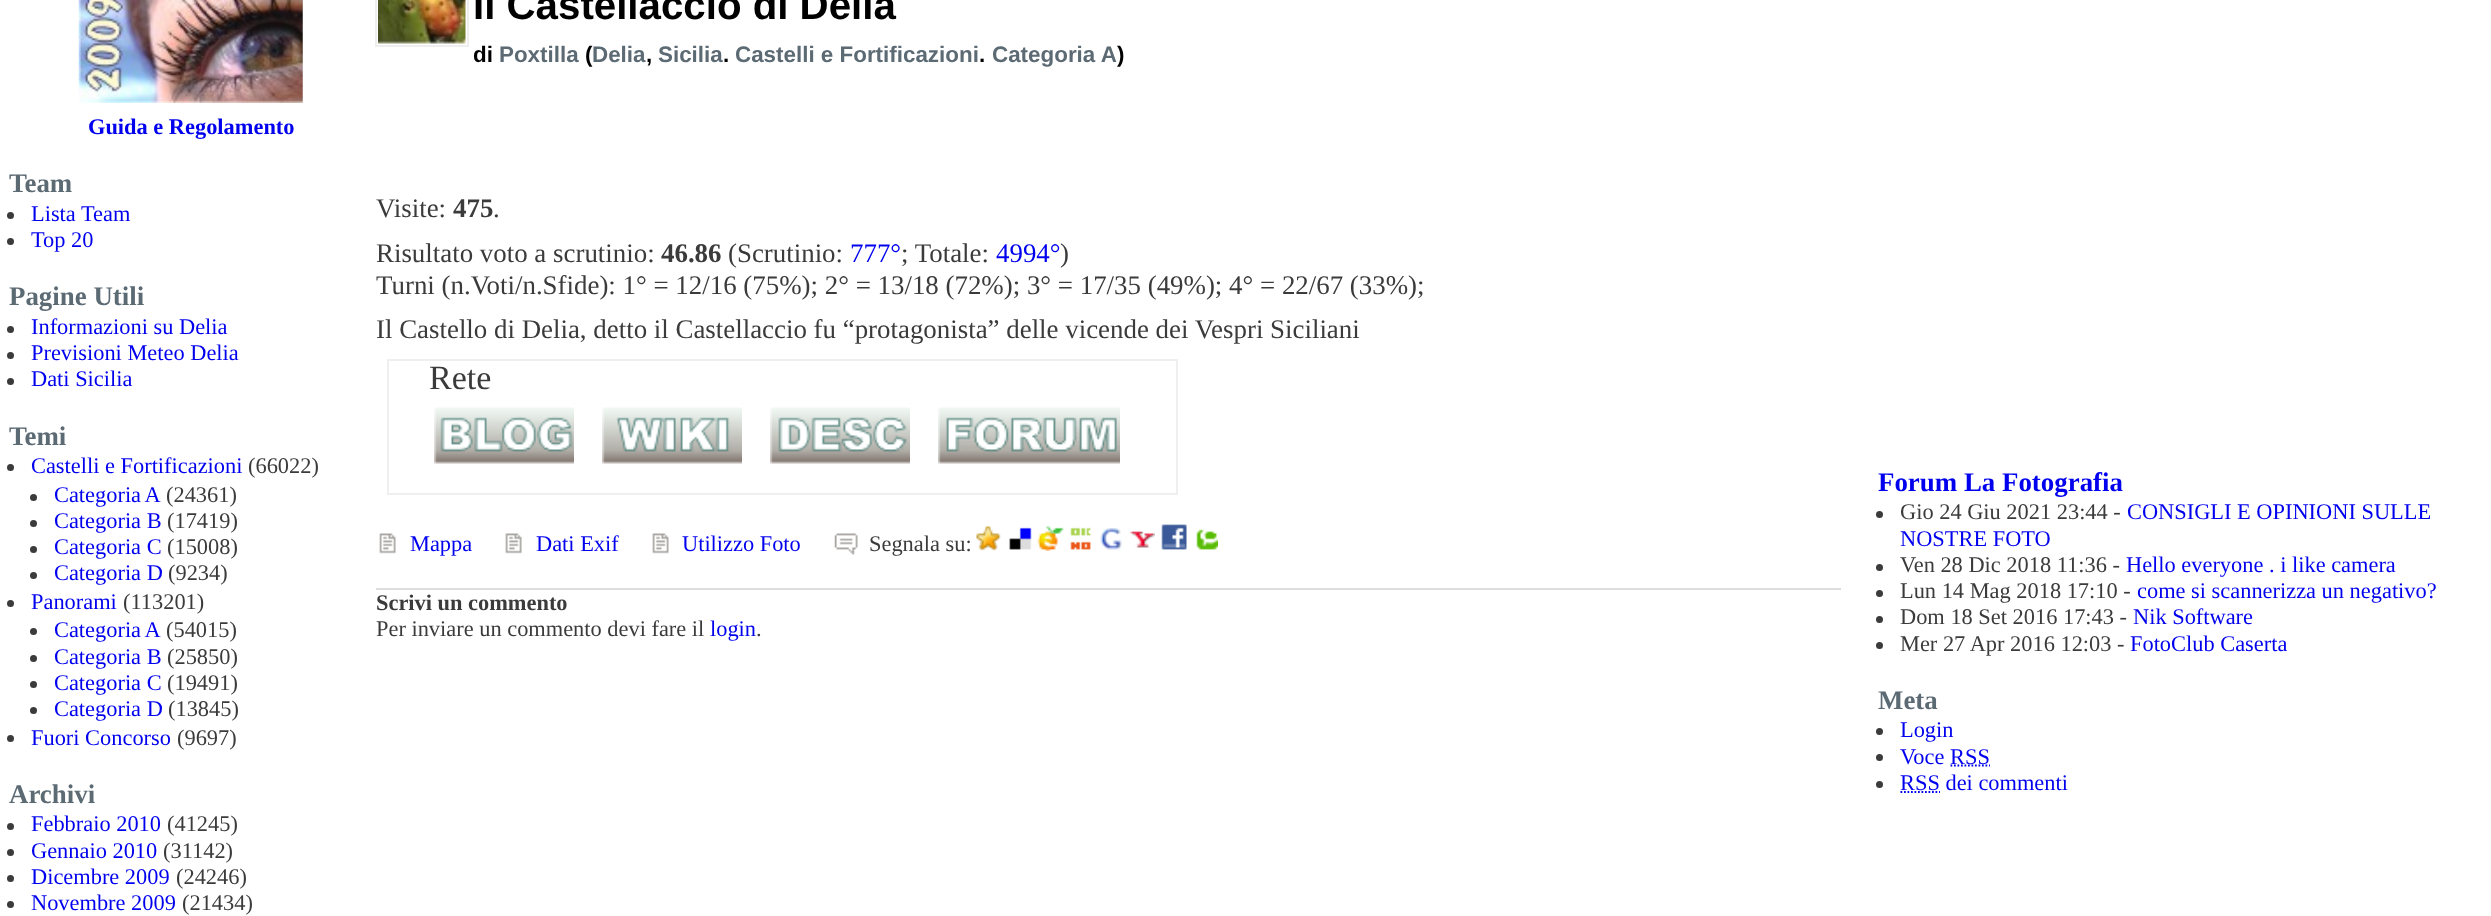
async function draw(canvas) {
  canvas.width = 2491;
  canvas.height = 916;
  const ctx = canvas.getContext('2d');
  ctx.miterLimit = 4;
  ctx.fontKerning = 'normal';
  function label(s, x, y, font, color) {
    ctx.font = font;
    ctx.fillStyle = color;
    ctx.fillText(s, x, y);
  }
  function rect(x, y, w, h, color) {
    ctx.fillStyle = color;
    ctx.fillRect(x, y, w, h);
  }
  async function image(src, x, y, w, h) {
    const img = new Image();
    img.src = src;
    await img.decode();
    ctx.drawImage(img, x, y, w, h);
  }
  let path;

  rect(0, 0, 2491, 916, '#fff');
  await image('assets/img1.png', 78, 0, 225, 103);
  label('Guida e Regolamento', 88, 134, 'bold 22.4px Liberation Serif', '#00e');
  label('Team', 9, 192, 'bold 26.9px Liberation Serif', '#5c6a74');
  ctx.fillStyle = '#3b3b3b';
  ctx.beginPath();
  ctx.arc(10.5, 215.5, 3.5, 0, 2 * Math.PI);
  ctx.fill();
  label('Lista Team', 31, 221, '22.4px Liberation Serif', '#00e');
  ctx.fillStyle = '#3b3b3b';
  ctx.beginPath();
  ctx.arc(10.5, 241.5, 3.5, 0, 2 * Math.PI);
  ctx.fill();
  label('Top 20', 31, 247, '22.4px Liberation Serif', '#00e');
  label('Pagine Utili', 9, 305, 'bold 26.9px Liberation Serif', '#5c6a74');
  ctx.fillStyle = '#3b3b3b';
  ctx.beginPath();
  ctx.arc(10.5, 329.5, 3.5, 0, 2 * Math.PI);
  ctx.fill();
  label('Informazioni su Delia', 31, 334, '22.4px Liberation Serif', '#00e');
  ctx.fillStyle = '#3b3b3b';
  ctx.beginPath();
  ctx.arc(10.5, 355.5, 3.5, 0, 2 * Math.PI);
  ctx.fill();
  label('Previsioni Meteo Delia', 31, 360, '22.4px Liberation Serif', '#00e');
  ctx.fillStyle = '#3b3b3b';
  ctx.beginPath();
  ctx.arc(10.5, 381.5, 3.5, 0, 2 * Math.PI);
  ctx.fill();
  label('Dati Sicilia', 31, 386, '22.4px Liberation Serif', '#00e');
  label('Temi', 9, 445, 'bold 26.9px Liberation Serif', '#5c6a74');
  ctx.fillStyle = '#3b3b3b';
  ctx.beginPath();
  ctx.arc(10.5, 467.5, 3.5, 0, 2 * Math.PI);
  ctx.fill();
  label('Castelli e Fortificazioni', 31, 473, '22.4px Liberation Serif', '#00e');
  label('(66022)', 248, 473, '22.4px Liberation Serif', '#3b3b3b');
  ctx.beginPath();
  ctx.arc(33.5, 497.5, 3.5, 0, 2 * Math.PI);
  ctx.fill();
  ctx.wordSpacing = '-1px';
  label('Categoria A', 54, 502, '22.4px Liberation Serif', '#00e');
  ctx.wordSpacing = '0px';
  label('(24361)', 166, 502, '22.4px Liberation Serif', '#3b3b3b');
  ctx.beginPath();
  ctx.arc(33.5, 523.5, 3.5, 0, 2 * Math.PI);
  ctx.fill();
  label('Categoria B', 54, 528, '22.4px Liberation Serif', '#00e');
  label('(17419)', 167, 528, '22.4px Liberation Serif', '#3b3b3b');
  ctx.beginPath();
  ctx.arc(33.5, 549.5, 3.5, 0, 2 * Math.PI);
  ctx.fill();
  label('Categoria C', 54, 554, '22.4px Liberation Serif', '#00e');
  label('(15008)', 167, 554, '22.4px Liberation Serif', '#3b3b3b');
  ctx.beginPath();
  ctx.arc(33.5, 575.5, 3.5, 0, 2 * Math.PI);
  ctx.fill();
  label('Categoria D', 54, 580, '22.4px Liberation Serif', '#00e');
  label('(9234)', 168, 580, '22.4px Liberation Serif', '#3b3b3b');
  ctx.beginPath();
  ctx.arc(10.5, 603.5, 3.5, 0, 2 * Math.PI);
  ctx.fill();
  label('Panorami', 31, 609, '22.4px Liberation Serif', '#00e');
  label('(113201)', 123, 609, '22.4px Liberation Serif', '#3b3b3b');
  ctx.beginPath();
  ctx.arc(33.5, 631.5, 3.5, 0, 2 * Math.PI);
  ctx.fill();
  ctx.wordSpacing = '-1px';
  label('Categoria A', 54, 637, '22.4px Liberation Serif', '#00e');
  ctx.wordSpacing = '0px';
  label('(54015)', 166, 637, '22.4px Liberation Serif', '#3b3b3b');
  ctx.beginPath();
  ctx.arc(33.5, 658.5, 3.5, 0, 2 * Math.PI);
  ctx.fill();
  label('Categoria B', 54, 664, '22.4px Liberation Serif', '#00e');
  label('(25850)', 167, 664, '22.4px Liberation Serif', '#3b3b3b');
  ctx.beginPath();
  ctx.arc(33.5, 684.5, 3.5, 0, 2 * Math.PI);
  ctx.fill();
  label('Categoria C', 54, 690, '22.4px Liberation Serif', '#00e');
  label('(19491)', 167, 690, '22.4px Liberation Serif', '#3b3b3b');
  ctx.beginPath();
  ctx.arc(33.5, 710.5, 3.5, 0, 2 * Math.PI);
  ctx.fill();
  label('Categoria D', 54, 716, '22.4px Liberation Serif', '#00e');
  label('(13845)', 168, 716, '22.4px Liberation Serif', '#3b3b3b');
  ctx.beginPath();
  ctx.arc(10.5, 738.5, 3.5, 0, 2 * Math.PI);
  ctx.fill();
  label('Fuori Concorso', 31, 745, '22.4px Liberation Serif', '#00e');
  label('(9697)', 177, 745, '22.4px Liberation Serif', '#3b3b3b');
  label('Archivi', 9, 803, 'bold 26.9px Liberation Serif', '#5c6a74');
  ctx.fillStyle = '#3b3b3b';
  ctx.beginPath();
  ctx.arc(10.5, 826.5, 3.5, 0, 2 * Math.PI);
  ctx.fill();
  label('Febbraio 2010', 31, 831, '22.4px Liberation Serif', '#00e');
  label('(41245)', 167, 831, '22.4px Liberation Serif', '#3b3b3b');
  ctx.beginPath();
  ctx.arc(10.5, 852.5, 3.5, 0, 2 * Math.PI);
  ctx.fill();
  label('Gennaio 2010', 31, 858, '22.4px Liberation Serif', '#00e');
  label('(31142)', 163, 858, '22.4px Liberation Serif', '#3b3b3b');
  ctx.beginPath();
  ctx.arc(10.5, 878.5, 3.5, 0, 2 * Math.PI);
  ctx.fill();
  label('Dicembre 2009', 31, 884, '22.4px Liberation Serif', '#00e');
  label('(24246)', 176, 884, '22.4px Liberation Serif', '#3b3b3b');
  ctx.beginPath();
  ctx.arc(10.5, 904.5, 3.5, 0, 2 * Math.PI);
  ctx.fill();
  label('Novembre 2009', 31, 910, '22.4px Liberation Serif', '#00e');
  label('(21434)', 182, 910, '22.4px Liberation Serif', '#3b3b3b');
  ctx.strokeStyle = '#eee';
  ctx.lineWidth = 2;
  ctx.strokeRect(376, -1, 92, 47);
  await image('assets/img2.png', 378, 0, 88, 44);
  label('Il Castellaccio di Delia', 473, 19, 'bold 40.25px Liberation Sans', '#000');
  label('di', 473, 62, 'bold 22.4px Liberation Sans', '#000');
  label('Poxtilla', 499, 62, 'bold 22.4px Liberation Sans', '#5c6a74');
  label('(', 585, 62, 'bold 22.4px Liberation Sans', '#000');
  label('Delia', 592, 62, 'bold 22.4px Liberation Sans', '#5c6a74');
  label(',', 646, 62, 'bold 22.4px Liberation Sans', '#000');
  label('Sicilia', 658, 62, 'bold 22.4px Liberation Sans', '#5c6a74');
  label('.', 723, 62, 'bold 22.4px Liberation Sans', '#000');
  label('Castelli e Fortificazioni', 735, 62, 'bold 22.4px Liberation Sans', '#5c6a74');
  label('.', 979, 62, 'bold 22.4px Liberation Sans', '#000');
  label('Categoria A', 992, 62, 'bold 22.4px Liberation Sans', '#5c6a74');
  label(')', 1117, 62, 'bold 22.4px Liberation Sans', '#000');
  label('Visite:', 376, 217, '26.9px Liberation Serif', '#3b3b3b');
  label('475', 453, 217, 'bold 26.9px Liberation Serif', '#3b3b3b');
  label('.', 493, 217, '26.9px Liberation Serif', '#3b3b3b');
  label('Risultato voto a scrutinio:', 376, 262, '26.9px Liberation Serif', '#3b3b3b');
  label('46.86', 661, 262, 'bold 26.9px Liberation Serif', '#3b3b3b');
  label('(Scrutinio:', 728, 262, '26.9px Liberation Serif', '#3b3b3b');
  label('777°', 850, 262, '26.9px Liberation Serif', '#00e');
  label('; Totale:', 901, 262, '26.9px Liberation Serif', '#3b3b3b');
  label('4994°', 996, 262, '26.9px Liberation Serif', '#00e');
  label(')', 1060, 262, '26.9px Liberation Serif', '#3b3b3b');
  label('Turni (n.Voti/n.Sfide): 1° = 12/16 (75%); 2° = 13/18 (72%); 3° = 17/35 (49%); 4° = 22/67 (33%);', 376, 294, '26.9px Liberation Serif', '#3b3b3b');
  label('Il Castello di Delia, detto il Castellaccio fu “protagonista” delle vicende dei Vespri Siciliani', 376, 338, '26.9px Liberation Serif', '#3b3b3b');
  ctx.strokeStyle = '#efefef';
  ctx.strokeRect(388, 360, 789, 134);
  label('Rete', 429, 389, '34px Liberation Serif', '#3b3b3b');
  await image('assets/img3.png', 434, 407, 140, 57);
  await image('assets/img4.png', 602, 407, 140, 57);
  await image('assets/img5.png', 770, 407, 140, 57);
  await image('assets/img6.png', 938, 407, 182, 57);
  await image('assets/img7.png', 379, 533, 17, 21);
  label('Mappa', 410, 551, '22.4px Liberation Serif', '#00e');
  await image('assets/img7.png', 505, 533, 17, 21);
  label('Dati Exif', 536, 551, '22.4px Liberation Serif', '#00e');
  await image('assets/img7.png', 652, 533, 17, 21);
  label('Utilizzo Foto', 682, 551, '22.4px Liberation Serif', '#00e');
  await image('assets/img8.png', 834, 533, 24, 22);
  label('Segnala su:', 869, 551, '22.4px Liberation Serif', '#3b3b3b');
  await image('assets/img9.png', 976, 526, 25, 25);
  await image('assets/img10.png', 1009, 527, 23, 23);
  await image('assets/img11.png', 1037, 526, 27, 25);
  await image('assets/img12.png', 1070, 527, 21, 23);
  await image('assets/img13.png', 1100, 528, 22, 22);
  await image('assets/img14.png', 1130, 531, 25, 17);
  await image('assets/img15.png', 1161, 524, 26, 26);
  await image('assets/img16.png', 1196, 529, 22, 21);
  rect(376, 588, 1465, 2, '#ddd');
  label('Scrivi un commento', 376, 610, 'bold 22.4px Liberation Serif', '#3b3b3b');
  label('Per inviare un commento devi fare il', 376, 636, '22.4px Liberation Serif', '#3b3b3b');
  label('login', 710, 636, '22.4px Liberation Serif', '#00e');
  label('.', 756, 636, '22.4px Liberation Serif', '#3b3b3b');
  label('Forum La Fotografia', 1878, 491, 'bold 26.9px Liberation Serif', '#00e');
  ctx.fillStyle = '#3b3b3b';
  ctx.beginPath();
  ctx.arc(1879.5, 514.5, 3.5, 0, 2 * Math.PI);
  ctx.fill();
  label('Gio 24 Giu 2021 23:44 -', 1900, 519, '22.4px Liberation Serif', '#3b3b3b');
  label('CONSIGLI E OPINIONI SULLE', 2127, 519, '22.4px Liberation Serif', '#00e');
  label('NOSTRE FOTO', 1900, 546, '22.4px Liberation Serif', '#00e');
  ctx.fillStyle = '#3b3b3b';
  ctx.beginPath();
  ctx.arc(1879.5, 567.5, 3.5, 0, 2 * Math.PI);
  ctx.fill();
  label('Ven 28 Dic 2018 11:36 -', 1900, 572, '22.4px Liberation Serif', '#3b3b3b');
  label('Hello everyone . i like camera', 2126, 572, '22.4px Liberation Serif', '#00e');
  ctx.fillStyle = '#3b3b3b';
  ctx.beginPath();
  ctx.arc(1879.5, 593.5, 3.5, 0, 2 * Math.PI);
  ctx.fill();
  label('Lun 14 Mag 2018 17:10 -', 1900, 598, '22.4px Liberation Serif', '#3b3b3b');
  label('come si scannerizza un negativo?', 2137, 598, '22.4px Liberation Serif', '#00e');
  ctx.fillStyle = '#3b3b3b';
  ctx.beginPath();
  ctx.arc(1879.5, 619.5, 3.5, 0, 2 * Math.PI);
  ctx.fill();
  label('Dom 18 Set 2016 17:43 -', 1900, 624, '22.4px Liberation Serif', '#3b3b3b');
  label('Nik Software', 2133, 624, '22.4px Liberation Serif', '#00e');
  ctx.fillStyle = '#3b3b3b';
  ctx.beginPath();
  ctx.arc(1879.5, 645.5, 3.5, 0, 2 * Math.PI);
  ctx.fill();
  label('Mer 27 Apr 2016 12:03 -', 1900, 651, '22.4px Liberation Serif', '#3b3b3b');
  label('FotoClub Caserta', 2130, 651, '22.4px Liberation Serif', '#00e');
  label('Meta', 1878, 709, 'bold 26.9px Liberation Serif', '#5c6a74');
  ctx.fillStyle = '#3b3b3b';
  ctx.beginPath();
  ctx.arc(1879.5, 731.5, 3.5, 0, 2 * Math.PI);
  ctx.fill();
  label('Login', 1900, 737, '22.4px Liberation Serif', '#00e');
  ctx.fillStyle = '#3b3b3b';
  ctx.beginPath();
  ctx.arc(1879.5, 757.5, 3.5, 0, 2 * Math.PI);
  ctx.fill();
  label('Voce', 1900, 764, '22.4px Liberation Serif', '#00e');
  path = new Path2D('M1950.5 765.5H1990');
  ctx.strokeStyle = '#00e';
  ctx.lineWidth = 1.8;
  ctx.setLineDash([1.75, 1.75]);
  ctx.stroke(path);
  label('RSS', 1950, 764, '22.4px Liberation Serif', '#00e');
  ctx.fillStyle = '#3b3b3b';
  ctx.beginPath();
  ctx.arc(1879.5, 784.5, 3.5, 0, 2 * Math.PI);
  ctx.fill();
  label('RSS dei commenti', 1900, 790, '22.4px Liberation Serif', '#00e');
  path = new Path2D('M1900.5 792H1940');
  ctx.stroke(path);
}

draw(document.querySelector('canvas'));
